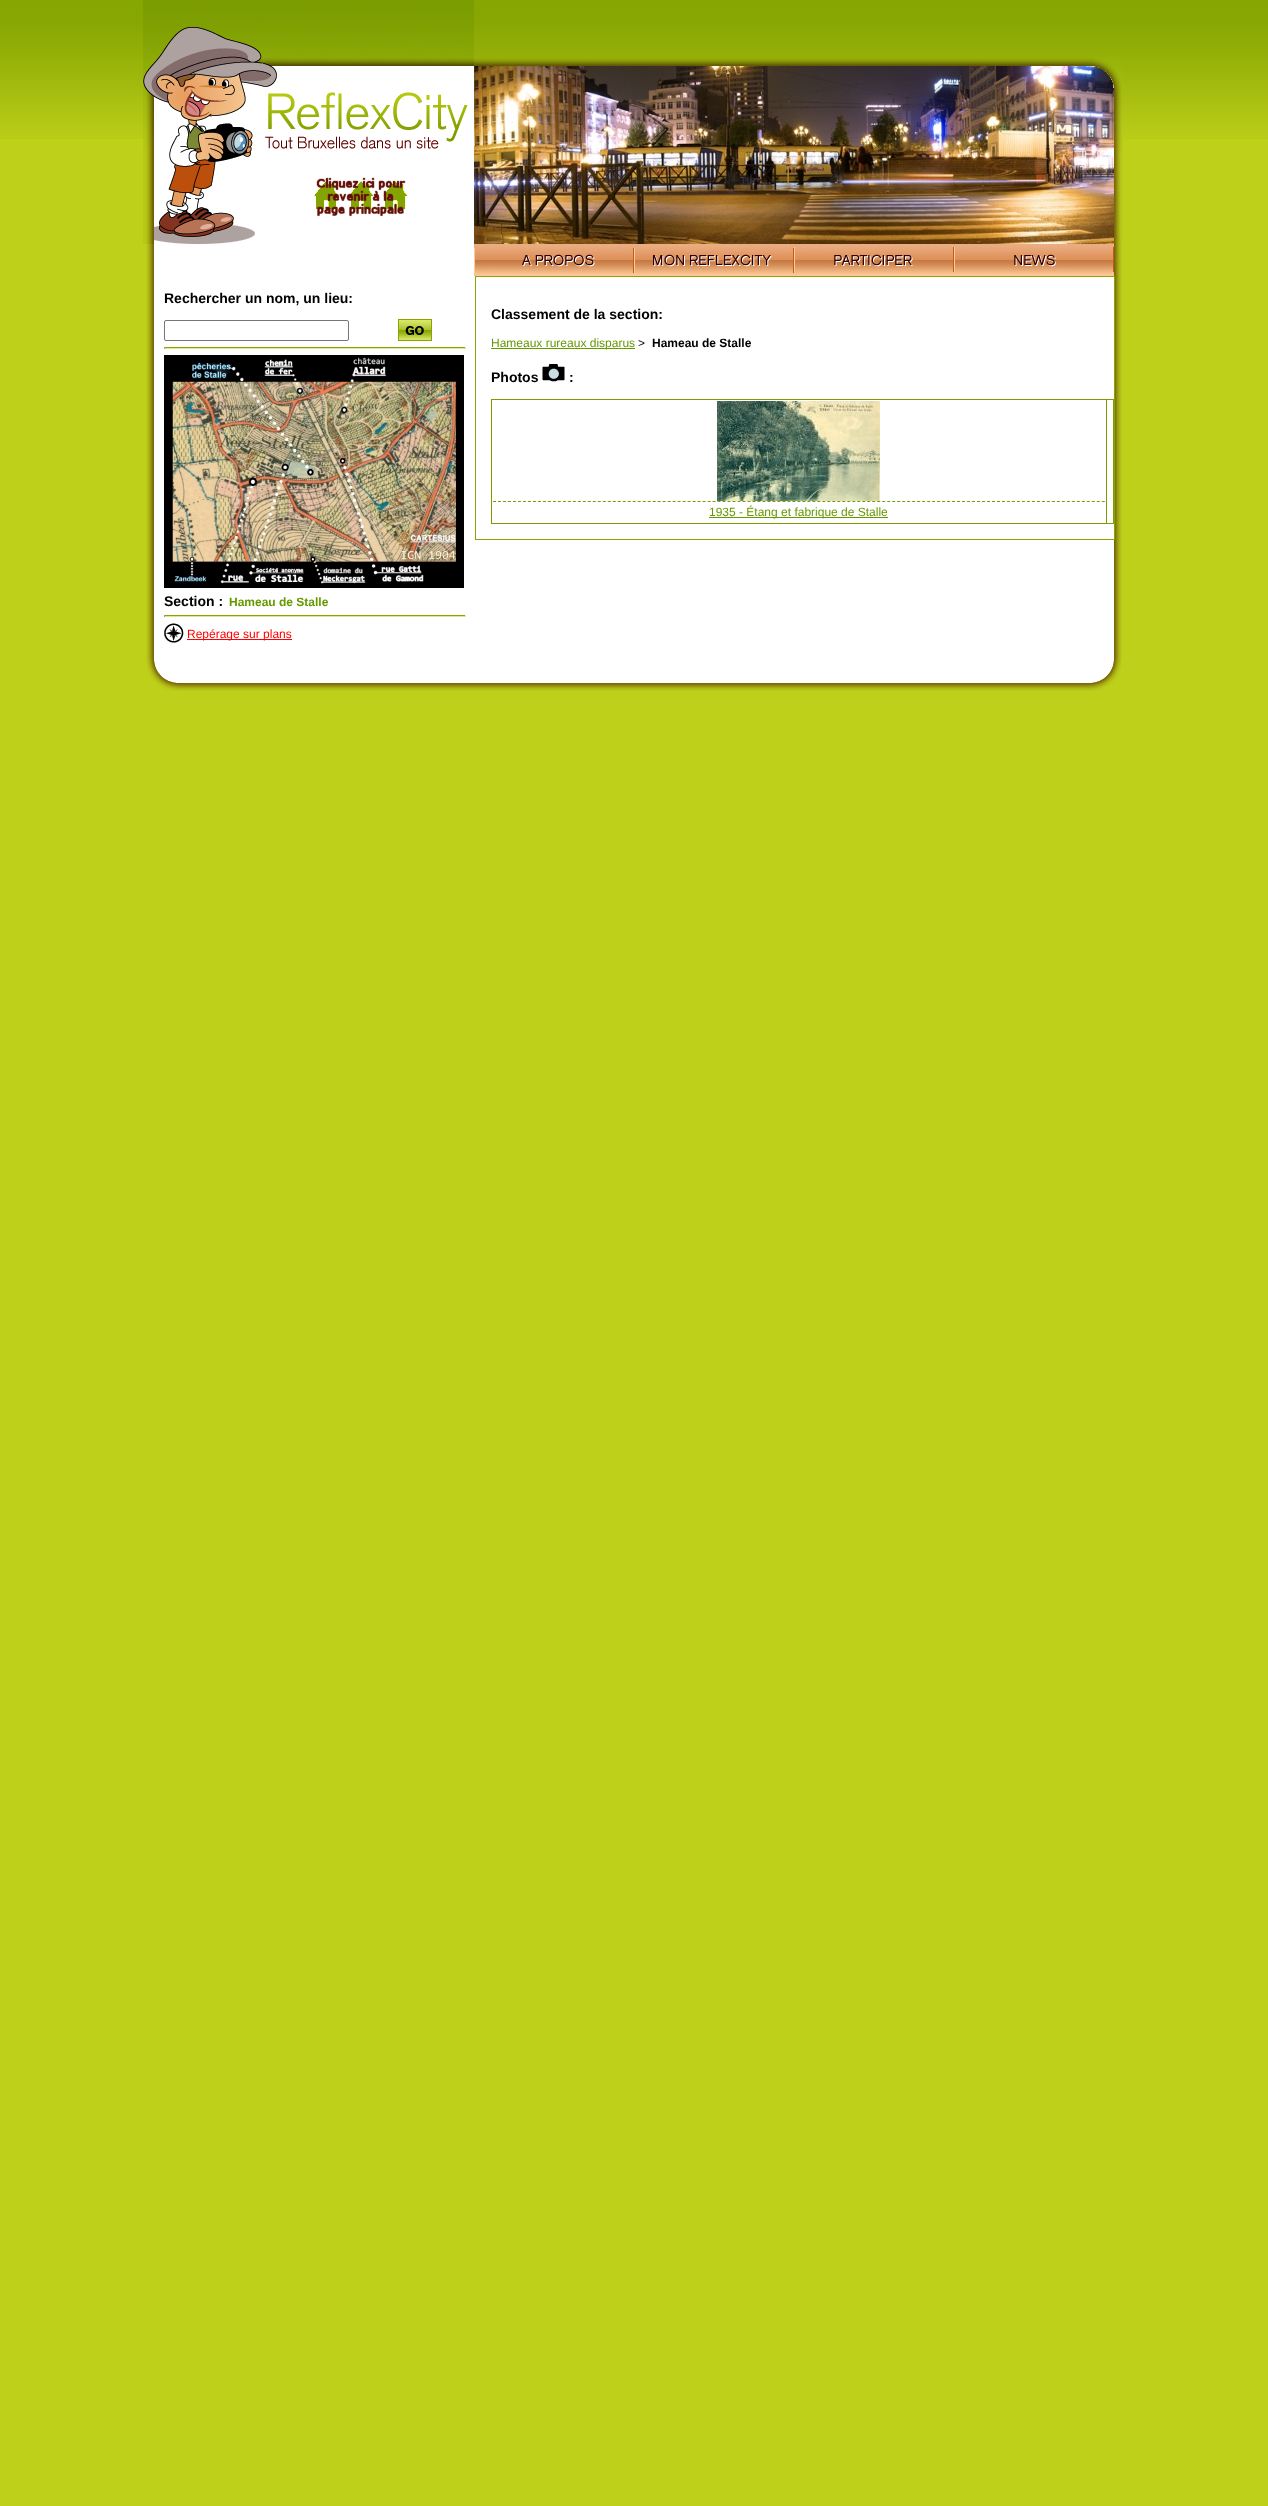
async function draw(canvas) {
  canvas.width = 1268;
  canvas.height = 2506;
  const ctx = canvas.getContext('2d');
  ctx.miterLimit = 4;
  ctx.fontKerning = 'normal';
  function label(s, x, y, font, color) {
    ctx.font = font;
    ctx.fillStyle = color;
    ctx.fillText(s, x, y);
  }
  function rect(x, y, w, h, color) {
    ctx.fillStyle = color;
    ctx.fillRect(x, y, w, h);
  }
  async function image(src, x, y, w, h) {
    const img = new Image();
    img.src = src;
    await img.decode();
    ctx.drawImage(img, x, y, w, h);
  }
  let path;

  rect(0, 0, 1268, 2506, '#bed01a');
  await image('assets/img1.png', 0, 0, 1268, 139);
  await image('assets/img2.png', 143, 0, 331, 244);
  await image('assets/img4.png', 474, 66, 640, 178);
  await image('assets/img3.png', 474, 58, 649, 186);
  await image('assets/img5.png', 146, 244, 328, 32);
  await image('assets/img6.png', 474, 244, 160, 32);
  await image('assets/img7.png', 634, 244, 160, 32);
  await image('assets/img8.png', 794, 244, 160, 32);
  await image('assets/img9.png', 954, 244, 160, 32);
  await image('assets/img10.png', 1114, 244, 8, 32);
  await image('assets/img11.png', 146, 276, 976, 381);
  label('Rechercher un nom, un lieu:', 164, 303, 'bold 14px Liberation Sans', '#000');
  ctx.beginPath();
  ctx.roundRect(164.5, 320.5, 184, 20, 1.5);
  ctx.strokeStyle = '#767676';
  ctx.stroke();
  await image('assets/img12.png', 398, 319, 34, 22);
  rect(164, 347, 302, 1, '#87a602');
  rect(465, 347, 1, 2, '#eee');
  rect(164, 348, 302, 1, '#d9e997');
  rect(164, 347, 1, 2, '#9f9f9f');
  await image('assets/img13.png', 164, 355, 300, 233);
  label('Section :', 164, 606, 'bold 14px Liberation Sans', '#000');
  label('Hameau de Stalle', 229, 606, 'bold 12px Liberation Sans', '#690');
  rect(164, 615, 302, 1, '#87a602');
  rect(465, 615, 1, 2, '#eee');
  rect(164, 616, 302, 1, '#d9e997');
  rect(164, 615, 1, 2, '#9f9f9f');
  await image('assets/img14.png', 164, 623, 20, 20);
  rect(187, 639, 105, 1, '#f00');
  label('Repérage sur plans', 187, 638, '12px Liberation Sans', '#f00');
  ctx.strokeStyle = '#87a602';
  ctx.strokeRect(475.5, 276.5, 639, 263);
  label('Classement de la section:', 491, 319, 'bold 14px Liberation Sans', '#000');
  rect(491, 348, 144, 1, '#690');
  label('Hameaux rureaux disparus', 491, 347, '12px Liberation Sans', '#690');
  label('>', 638, 347, '12px Liberation Sans', '#000');
  label('Hameau de Stalle', 652, 347, 'bold 12px Liberation Sans', '#000');
  label('Photos', 491, 382, 'bold 14px Liberation Sans', '#000');
  await image('assets/img15.png', 542, 364, 23, 18);
  label(':', 569, 382, 'bold 14px Liberation Sans', '#000');
  rect(491, 399, 623, 1, '#7c9d01');
  rect(1113, 399, 1, 125, '#7c9d01');
  rect(491, 523, 623, 1, '#7c9d01');
  rect(491, 399, 1, 125, '#7c9d01');
  path = new Path2D('M493 501.5H1105');
  ctx.strokeStyle = '#7c9d01';
  ctx.setLineDash([3, 1.99]);
  ctx.stroke(path);
  await image('assets/img16.png', 717, 401, 163, 100);
  rect(709, 517, 179, 1, '#690');
  label('1935 - Étang et fabrique de Stalle', 709, 516, '12px Liberation Sans', '#690');
  rect(1106, 399, 1, 125, '#7c9d01');
  await image('assets/img17.png', 146, 657, 976, 34);
}

draw(document.querySelector('canvas'));
